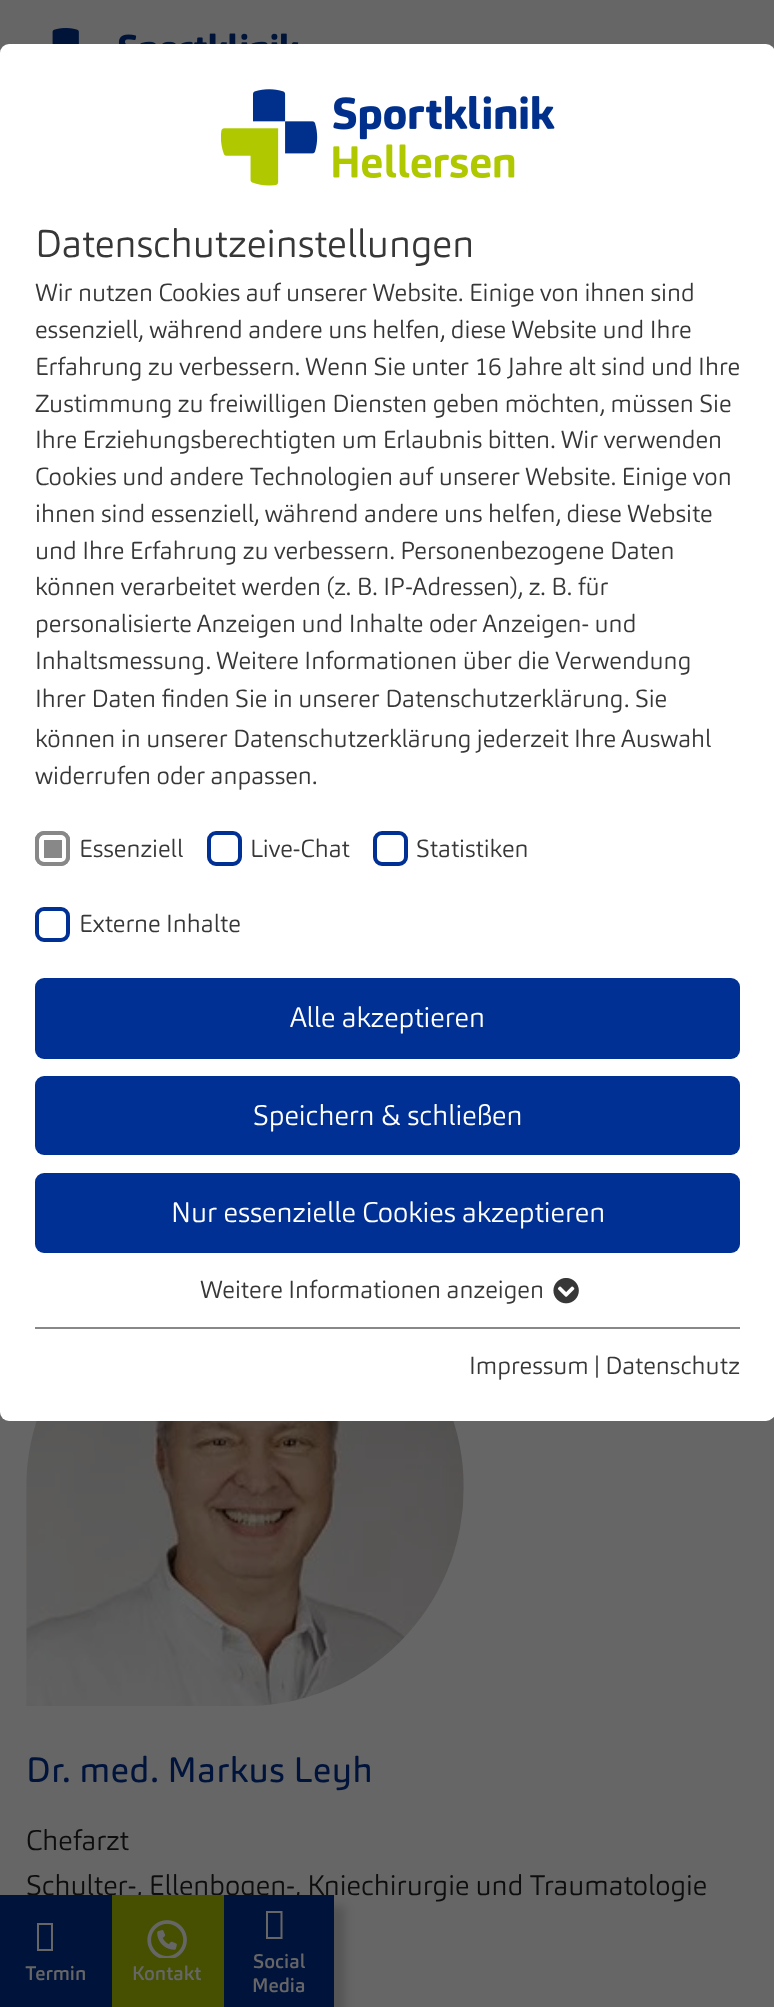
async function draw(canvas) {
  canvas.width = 774;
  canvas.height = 2007;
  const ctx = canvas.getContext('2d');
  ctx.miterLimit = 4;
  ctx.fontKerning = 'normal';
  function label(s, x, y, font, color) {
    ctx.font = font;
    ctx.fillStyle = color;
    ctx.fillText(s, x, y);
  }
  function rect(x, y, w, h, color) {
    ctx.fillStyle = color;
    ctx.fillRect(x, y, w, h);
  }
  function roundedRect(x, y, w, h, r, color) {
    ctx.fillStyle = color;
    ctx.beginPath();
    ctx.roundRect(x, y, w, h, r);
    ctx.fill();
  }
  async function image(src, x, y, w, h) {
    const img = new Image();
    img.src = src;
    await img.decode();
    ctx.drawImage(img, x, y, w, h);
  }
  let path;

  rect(0, 0, 774, 2007, '#666');
  await image('assets/img1.png', 52, 28, 247, 16);
  roundedRect(0, 44, 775, 1377, 9, '#fff');
  await image('assets/img2.png', 221, 89, 334, 97);
  label('Datenschutzeinstellungen', 35, 257, '300 38.5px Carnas', '#373737');
  label('Wir nutzen Cookies auf unserer Website. Einige von ihnen sind', 35, 301, '300 24.5px Carnas', '#373737');
  label('essenziell, während andere uns helfen, diese Website und Ihre', 35, 338, '300 24.5px Carnas', '#373737');
  label('Erfahrung zu verbessern. Wenn Sie unter 16 Jahre alt sind und Ihre', 35, 375, '300 24.5px Carnas', '#373737');
  label('Zustimmung zu freiwilligen Diensten geben möchten, müssen Sie', 35, 412, '300 24.5px Carnas', '#373737');
  label('Ihre Erziehungsberechtigten um Erlaubnis bitten. Wir verwenden', 35, 448, '300 24.5px Carnas', '#373737');
  label('Cookies und andere Technologien auf unserer Website. Einige von', 35, 485, '300 24.5px Carnas', '#373737');
  label('ihnen sind essenziell, während andere uns helfen, diese Website', 35, 522, '300 24.5px Carnas', '#373737');
  label('und Ihre Erfahrung zu verbessern. Personenbezogene Daten', 35, 559, '300 24.5px Carnas', '#373737');
  label('können verarbeitet werden (z. B. IP-Adressen), z. B. für', 35, 595, '300 24.5px Carnas', '#373737');
  label('personalisierte Anzeigen und Inhalte oder Anzeigen- und', 35, 632, '300 24.5px Carnas', '#373737');
  label('Inhaltsmessung. Weitere Informationen über die Verwendung', 35, 669, '300 24.5px Carnas', '#373737');
  label('Ihrer Daten finden Sie in unserer Datenschutzerklärung', 35, 707, '300 24.5px Carnas', '#373737');
  label('. Sie', 624, 707, '300 24.5px Carnas', '#373737');
  label('können in unserer Datenschutzerklärung jederzeit Ihre Auswahl', 35, 747, '300 24.5px Carnas', '#373737');
  label('widerrufen oder anpassen.', 35, 784, '300 24.5px Carnas', '#373737');
  roundedRect(35, 831, 35, 35, 9, '#888');
  ctx.beginPath();
  ctx.roundRect(41.5, 837.5, 23, 23, 2.5);
  ctx.strokeStyle = '#fff';
  ctx.lineWidth = 5;
  ctx.stroke();
  ctx.beginPath();
  ctx.roundRect(37, 833, 31, 31, 7);
  ctx.strokeStyle = '#888';
  ctx.lineWidth = 4;
  ctx.stroke();
  label('Essenziell', 79, 857, '300 24.5px Carnas', '#373737');
  ctx.beginPath();
  ctx.roundRect(209, 833, 31, 31, 7);
  ctx.strokeStyle = '#003094';
  ctx.stroke();
  label('Live-Chat', 250, 857, '300 24.5px Carnas', '#373737');
  ctx.beginPath();
  ctx.roundRect(375, 833, 31, 31, 7);
  ctx.stroke();
  label('Statistiken', 416, 857, '300 24.5px Carnas', '#373737');
  ctx.beginPath();
  ctx.roundRect(37, 909, 31, 31, 7);
  ctx.stroke();
  label('Externe Inhalte', 79, 932, '300 24.5px Carnas', '#373737');
  roundedRect(35, 978, 705, 81, 9, '#003094');
  label('Alle akzeptieren', 290, 1027, '300 28px Carnas', '#fff');
  roundedRect(35, 1076, 705, 79, 9, '#003094');
  label('Speichern & schließen', 253, 1125, '300 28px Carnas', '#fff');
  roundedRect(35, 1173, 705, 80, 9, '#003094');
  label('Nur essenzielle Cookies akzeptieren', 171, 1222, '300 28px Carnas', '#fff');
  label('Weitere Informationen anzeigen', 200, 1298, '300 24.5px Carnas', '#373737');
  await image('assets/img3.png', 553, 1278, 26, 26);
  rect(35, 1327, 705, 2, '#888');
  label('Impressum | Datenschutz', 469, 1374, '300 24.5px Carnas', '#373737');
  await image('assets/img4.png', 26, 1421, 438, 285);
  ctx.letterSpacing = '0.6px';
  label('Dr. med. Markus Leyh', 26, 1782, '35px Carnas', '#00133b');
  ctx.letterSpacing = '0px';
  label('Chefarzt', 26, 1850, '300 28px Carnas', '#0d0d0d');
  label('Schulter-, Ellenbogen-, Kniechirurgie und Traumatologie', 26, 1895, '300 28px Carnas', '#0d0d0d');
  ctx.fillStyle = '#00000029';
  ctx.filter = 'blur(5px)';
  ctx.beginPath();
  ctx.rect(11, 1906, 334, 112);
  ctx.fill();
  ctx.filter = 'none';
  rect(0, 1895, 112, 112, '#00133b');
  ctx.fillStyle = '#666';
  path = new Path2D('M37 1951V1923H53V1951ZM39 1949H51V1925H39Z');
  ctx.fill(path);
  label('Termin', 25, 1980, '500 19.5px Carnas', '#666');
  rect(112, 1895, 112, 112, '#465000');
  await image('assets/img5.png', 147, 1920, 40, 38);
  label('Kontakt', 132, 1980, '500 19.5px Carnas', '#666');
  rect(224, 1895, 110, 112, '#00133b');
  ctx.fillStyle = '#666';
  path = new Path2D('M266 1939V1911H282.5V1939ZM268 1937H280.5V1913H268Z');
  ctx.fill(path);
  label('Social', 253, 1968, '500 19.5px Carnas', '#666');
  label('Media', 252, 1992, '500 19.5px Carnas', '#666');
}

draw(document.querySelector('canvas'));
